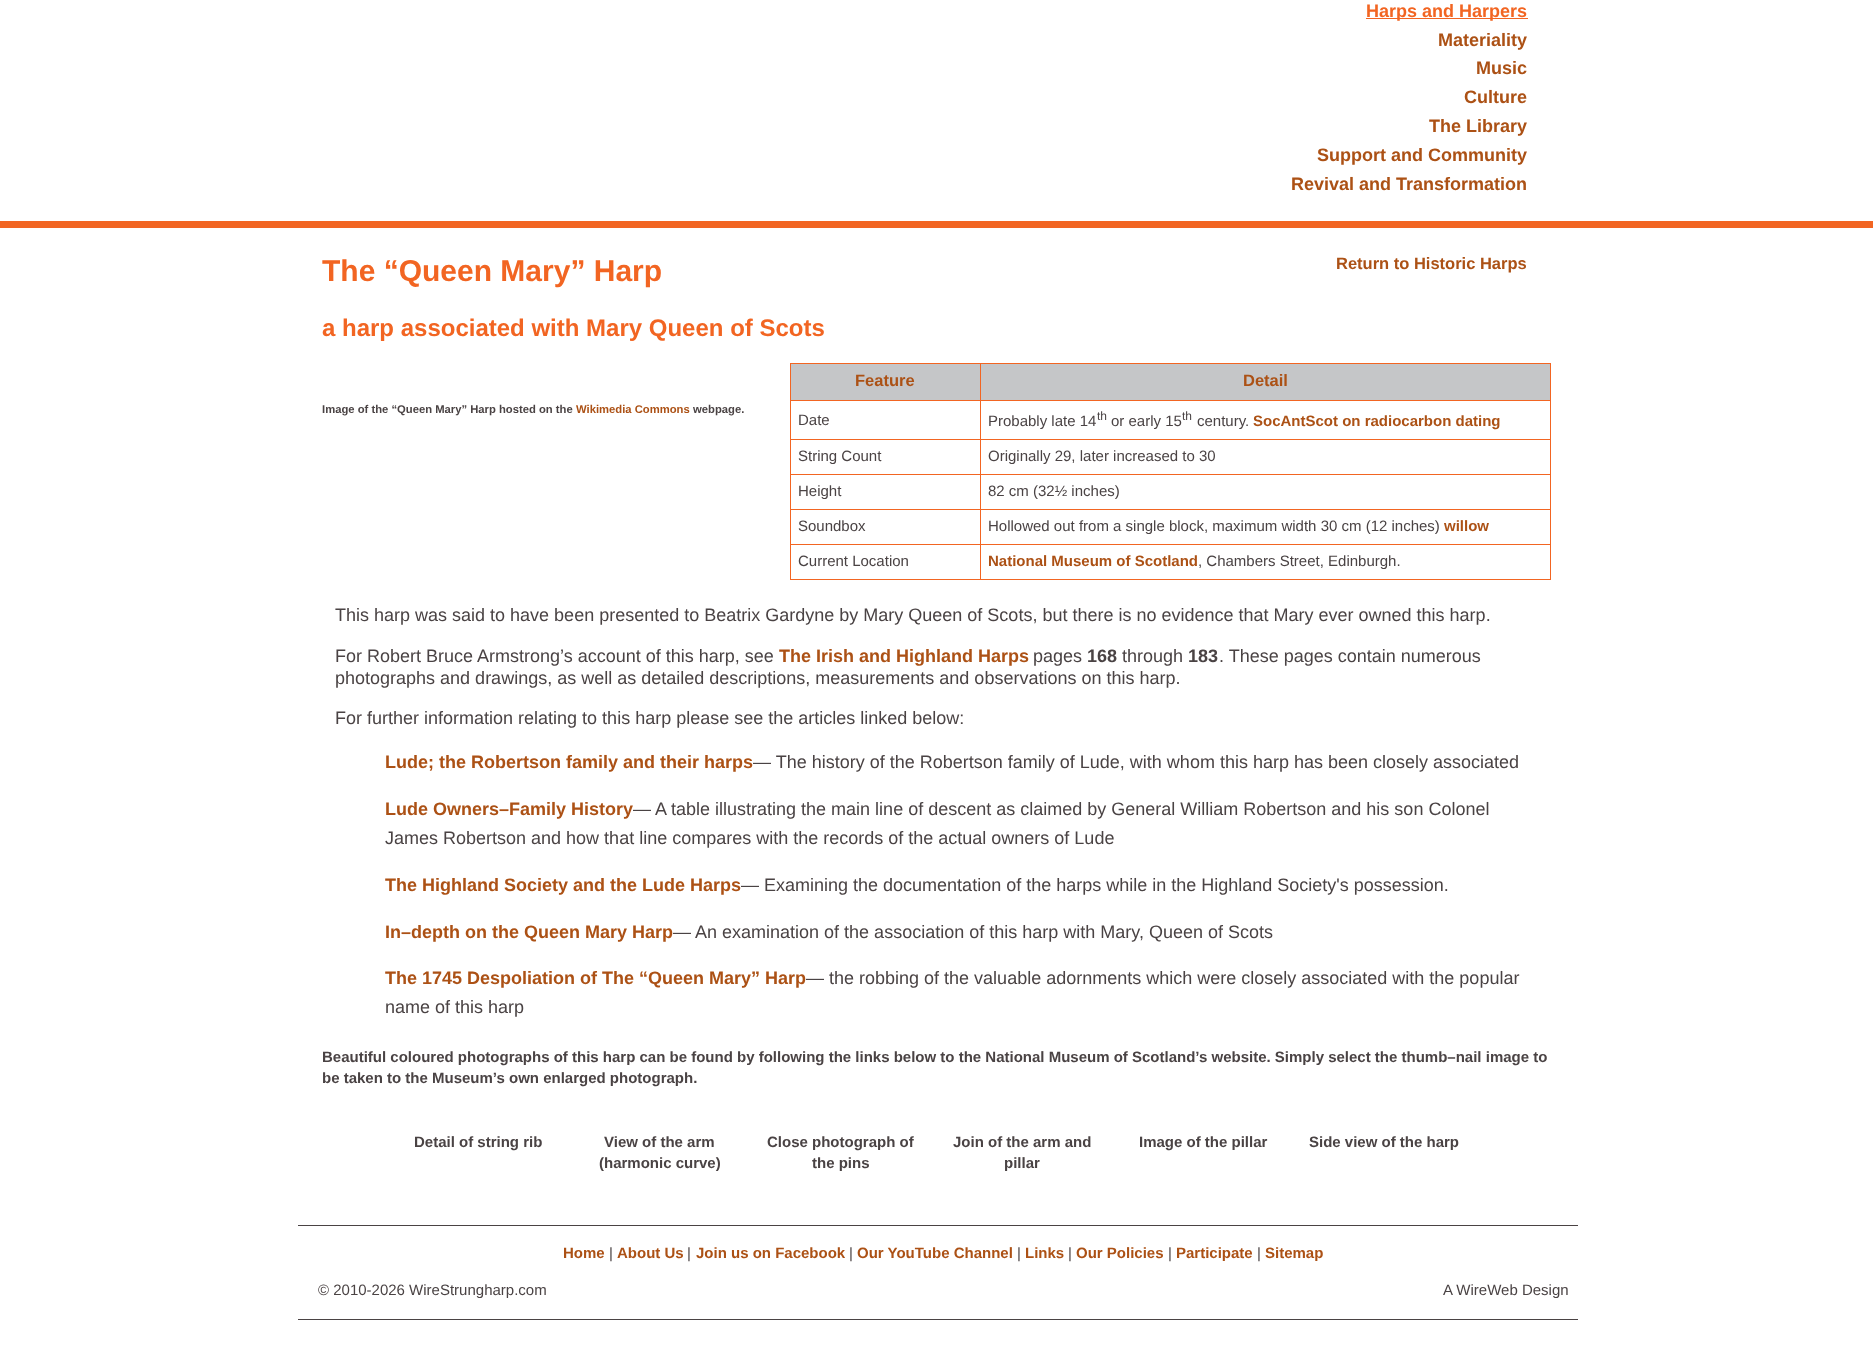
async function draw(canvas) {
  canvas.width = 1873;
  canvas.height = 1350;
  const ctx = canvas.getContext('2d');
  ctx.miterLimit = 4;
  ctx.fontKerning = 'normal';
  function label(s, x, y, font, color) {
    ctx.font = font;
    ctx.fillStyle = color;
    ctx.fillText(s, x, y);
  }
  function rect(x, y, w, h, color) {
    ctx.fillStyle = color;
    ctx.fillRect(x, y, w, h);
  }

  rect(0, 0, 1873, 1350, '#fff');
  rect(1366, 18, 162, 1, '#f26522');
  label('Harps and Harpers', 1366, 17, 'bold 18px Liberation Sans', '#f26522');
  label('Materiality', 1438, 46, 'bold 18px Liberation Sans', '#ac5115');
  label('Music', 1476, 74, 'bold 18px Liberation Sans', '#ac5115');
  label('Culture', 1464, 103, 'bold 18px Liberation Sans', '#ac5115');
  label('The Library', 1429, 132, 'bold 18px Liberation Sans', '#ac5115');
  label('Support and Community', 1317, 161, 'bold 18px Liberation Sans', '#ac5115');
  label('Revival and Transformation', 1291, 190, 'bold 18px Liberation Sans', '#ac5115');
  rect(0, 221, 1873, 7, '#f26522');
  label('The “Queen Mary” Harp', 322, 281, 'bold 30px Liberation Sans', '#f26522');
  label('Return to Historic Harps', 1336, 269, 'bold 16.5px Liberation Sans', '#ac5115');
  label('a harp associated with Mary Queen of Scots', 322, 336, 'bold 24px Liberation Sans', '#f26522');
  label('Image of the “Queen Mary” Harp hosted on the', 322, 413, 'bold 11.25px Liberation Sans', '#4a4344');
  label('Wikimedia Commons', 576, 413, 'bold 11.25px Liberation Sans', '#ac5115');
  label('webpage.', 693, 413, 'bold 11.25px Liberation Sans', '#4a4344');
  rect(791, 364, 189, 36, '#c5c6c8');
  rect(980, 363, 571, 1, '#f26522');
  rect(980, 400, 571, 1, '#f26522');
  rect(980, 439, 571, 1, '#f26522');
  rect(980, 474, 571, 1, '#f26522');
  rect(980, 509, 571, 1, '#f26522');
  rect(980, 544, 571, 1, '#f26522');
  rect(1550, 544, 1, 36, '#f26522');
  rect(980, 579, 571, 1, '#f26522');
  rect(980, 544, 1, 36, '#f26522');
  rect(790, 544, 191, 1, '#f26522');
  rect(980, 509, 1, 36, '#f26522');
  rect(790, 509, 191, 1, '#f26522');
  rect(980, 474, 1, 36, '#f26522');
  rect(790, 474, 191, 1, '#f26522');
  rect(980, 439, 1, 36, '#f26522');
  rect(790, 439, 191, 1, '#f26522');
  rect(980, 400, 1, 40, '#f26522');
  rect(790, 400, 191, 1, '#f26522');
  rect(980, 363, 1, 38, '#f26522');
  rect(790, 363, 191, 1, '#f26522');
  rect(790, 579, 191, 1, '#f26522');
  rect(790, 544, 1, 36, '#f26522');
  rect(790, 509, 1, 36, '#f26522');
  rect(790, 474, 1, 36, '#f26522');
  rect(790, 439, 1, 36, '#f26522');
  rect(790, 400, 1, 40, '#f26522');
  rect(790, 363, 1, 38, '#f26522');
  label('Feature', 855, 386, 'bold 16.5px Liberation Sans', '#ac5115');
  rect(981, 364, 569, 36, '#c5c6c8');
  rect(1550, 509, 1, 36, '#f26522');
  rect(1550, 474, 1, 36, '#f26522');
  rect(1550, 439, 1, 36, '#f26522');
  rect(1550, 400, 1, 40, '#f26522');
  rect(1550, 363, 1, 38, '#f26522');
  label('Detail', 1243, 386, 'bold 16.5px Liberation Sans', '#ac5115');
  label('Date', 798, 425, '15px Liberation Sans', '#4a4344');
  label('Probably late 14', 988, 426, '15px Liberation Sans', '#4a4344');
  label('th', 1097, 420, '12px Liberation Sans', '#4a4344');
  label('or early 15', 1111, 426, '15px Liberation Sans', '#4a4344');
  label('th', 1182, 420, '12px Liberation Sans', '#4a4344');
  label('century.', 1197, 426, '15px Liberation Sans', '#4a4344');
  label('SocAntScot on radiocarbon dating', 1253, 426, 'bold 15px Liberation Sans', '#ac5115');
  label('String Count', 798, 461, '15px Liberation Sans', '#4a4344');
  label('Originally 29, later increased to 30', 988, 461, '15px Liberation Sans', '#4a4344');
  label('Height', 798, 496, '15px Liberation Sans', '#4a4344');
  label('82 cm (32½ inches)', 988, 496, '15px Liberation Sans', '#4a4344');
  label('Soundbox', 798, 531, '15px Liberation Sans', '#4a4344');
  label('Hollowed out from a single block, maximum width 30 cm (12 inches)', 988, 531, '15px Liberation Sans', '#4a4344');
  label('willow', 1444, 531, 'bold 15px Liberation Sans', '#ac5115');
  label('Current Location', 798, 566, '15px Liberation Sans', '#4a4344');
  label('National Museum of Scotland', 988, 566, 'bold 15px Liberation Sans', '#ac5115');
  label(', Chambers Street, Edinburgh.', 1198, 566, '15px Liberation Sans', '#4a4344');
  label('This harp was said to have been presented to Beatrix Gardyne by Mary Queen of Scots, but there is no evidence that Mary ever owned this harp.', 335, 621, '18px Liberation Sans', '#4a4344');
  label('For Robert Bruce Armstrong’s account of this harp, see', 335, 662, '18px Liberation Sans', '#4a4344');
  label('The Irish and Highland Harps', 779, 662, 'bold 18px Liberation Sans', '#ac5115');
  label('pages', 1033, 662, '18px Liberation Sans', '#4a4344');
  label('168', 1087, 662, 'bold 18px Liberation Sans', '#4a4344');
  label('through', 1122, 662, '18px Liberation Sans', '#4a4344');
  label('183', 1188, 662, 'bold 18px Liberation Sans', '#4a4344');
  label('. These pages contain numerous', 1219, 662, '18px Liberation Sans', '#4a4344');
  label('photographs and drawings, as well as detailed descriptions, measurements and observations on this harp.', 335, 684, '18px Liberation Sans', '#4a4344');
  label('For further information relating to this harp please see the articles linked below:', 335, 724, '18px Liberation Sans', '#4a4344');
  label('Lude; the Robertson family and their harps', 385, 768, 'bold 18px Liberation Sans', '#ac5115');
  label('— The history of the Robertson family of Lude, with whom this harp has been closely associated', 753, 768, '18px Liberation Sans', '#4a4344');
  label('Lude Owners–Family History', 385, 815, 'bold 18px Liberation Sans', '#ac5115');
  label('—', 633, 815, '18px Liberation Sans', '#4a4344');
  label('A table illustrating the main line of descent as claimed by General William Robertson and his son Colonel', 655, 815, '18px Liberation Sans', '#4a4344');
  label('James Robertson and how that line compares with the records of the actual owners of Lude', 385, 844, '18px Liberation Sans', '#4a4344');
  label('The Highland Society and the Lude Harps', 385, 891, 'bold 18px Liberation Sans', '#ac5115');
  label('— Examining the documentation of the harps while in the Highland Society\'s possession.', 741, 891, '18px Liberation Sans', '#4a4344');
  label('In–depth on the Queen Mary Harp', 385, 938, 'bold 18px Liberation Sans', '#ac5115');
  label('— An examination of the association of this harp with Mary, Queen of Scots', 673, 938, '18px Liberation Sans', '#4a4344');
  label('The 1745 Despoliation of The “Queen Mary” Harp', 385, 984, 'bold 18px Liberation Sans', '#ac5115');
  label('— the robbing of the valuable adornments which were closely associated with the popular', 806, 984, '18px Liberation Sans', '#4a4344');
  label('name of this harp', 385, 1013, '18px Liberation Sans', '#4a4344');
  label('Beautiful coloured photographs of this harp can be found by following the links below to the National Museum of Scotland’s website. Simply select the thumb–nail image to', 322, 1062, 'bold 15px Liberation Sans', '#4a4344');
  label('be taken to the Museum’s own enlarged photograph.', 322, 1083, 'bold 15px Liberation Sans', '#4a4344');
  label('Detail of string rib', 414, 1147, 'bold 15px Liberation Sans', '#4a4344');
  label('View of the arm', 604, 1147, 'bold 15px Liberation Sans', '#4a4344');
  label('(harmonic curve)', 599, 1168, 'bold 15px Liberation Sans', '#4a4344');
  label('Close photograph of', 767, 1147, 'bold 15px Liberation Sans', '#4a4344');
  label('the pins', 812, 1168, 'bold 15px Liberation Sans', '#4a4344');
  label('Join of the arm and', 953, 1147, 'bold 15px Liberation Sans', '#4a4344');
  label('pillar', 1004, 1168, 'bold 15px Liberation Sans', '#4a4344');
  label('Image of the pillar', 1139, 1147, 'bold 15px Liberation Sans', '#4a4344');
  label('Side view of the harp', 1309, 1147, 'bold 15px Liberation Sans', '#4a4344');
  rect(298, 1225, 1280, 1, '#4a4344');
  rect(298, 1319, 1280, 1, '#4a4344');
  label('Home', 563, 1258, 'bold 15px Liberation Sans', '#ac5115');
  label('|', 609, 1258, '15px Liberation Sans', '#4a4344');
  label('About Us', 617, 1258, 'bold 15px Liberation Sans', '#ac5115');
  label('|', 687, 1258, '15px Liberation Sans', '#4a4344');
  label('Join us on Facebook', 696, 1258, 'bold 15px Liberation Sans', '#ac5115');
  label('|', 849, 1258, '15px Liberation Sans', '#4a4344');
  label('Our YouTube Channel', 857, 1258, 'bold 15px Liberation Sans', '#ac5115');
  label('|', 1017, 1258, '15px Liberation Sans', '#4a4344');
  label('Links', 1025, 1258, 'bold 15px Liberation Sans', '#ac5115');
  label('|', 1068, 1258, '15px Liberation Sans', '#4a4344');
  label('Our Policies', 1076, 1258, 'bold 15px Liberation Sans', '#ac5115');
  label('|', 1168, 1258, '15px Liberation Sans', '#4a4344');
  label('Participate', 1176, 1258, 'bold 15px Liberation Sans', '#ac5115');
  label('|', 1257, 1258, '15px Liberation Sans', '#4a4344');
  label('Sitemap', 1265, 1258, 'bold 15px Liberation Sans', '#ac5115');
  label('© 2010-2026 WireStrungharp.com', 318, 1295, '15px Liberation Sans', '#4a4344');
  label('A WireWeb Design', 1443, 1295, '15px Liberation Sans', '#4a4344');
}

draw(document.querySelector('canvas'));
